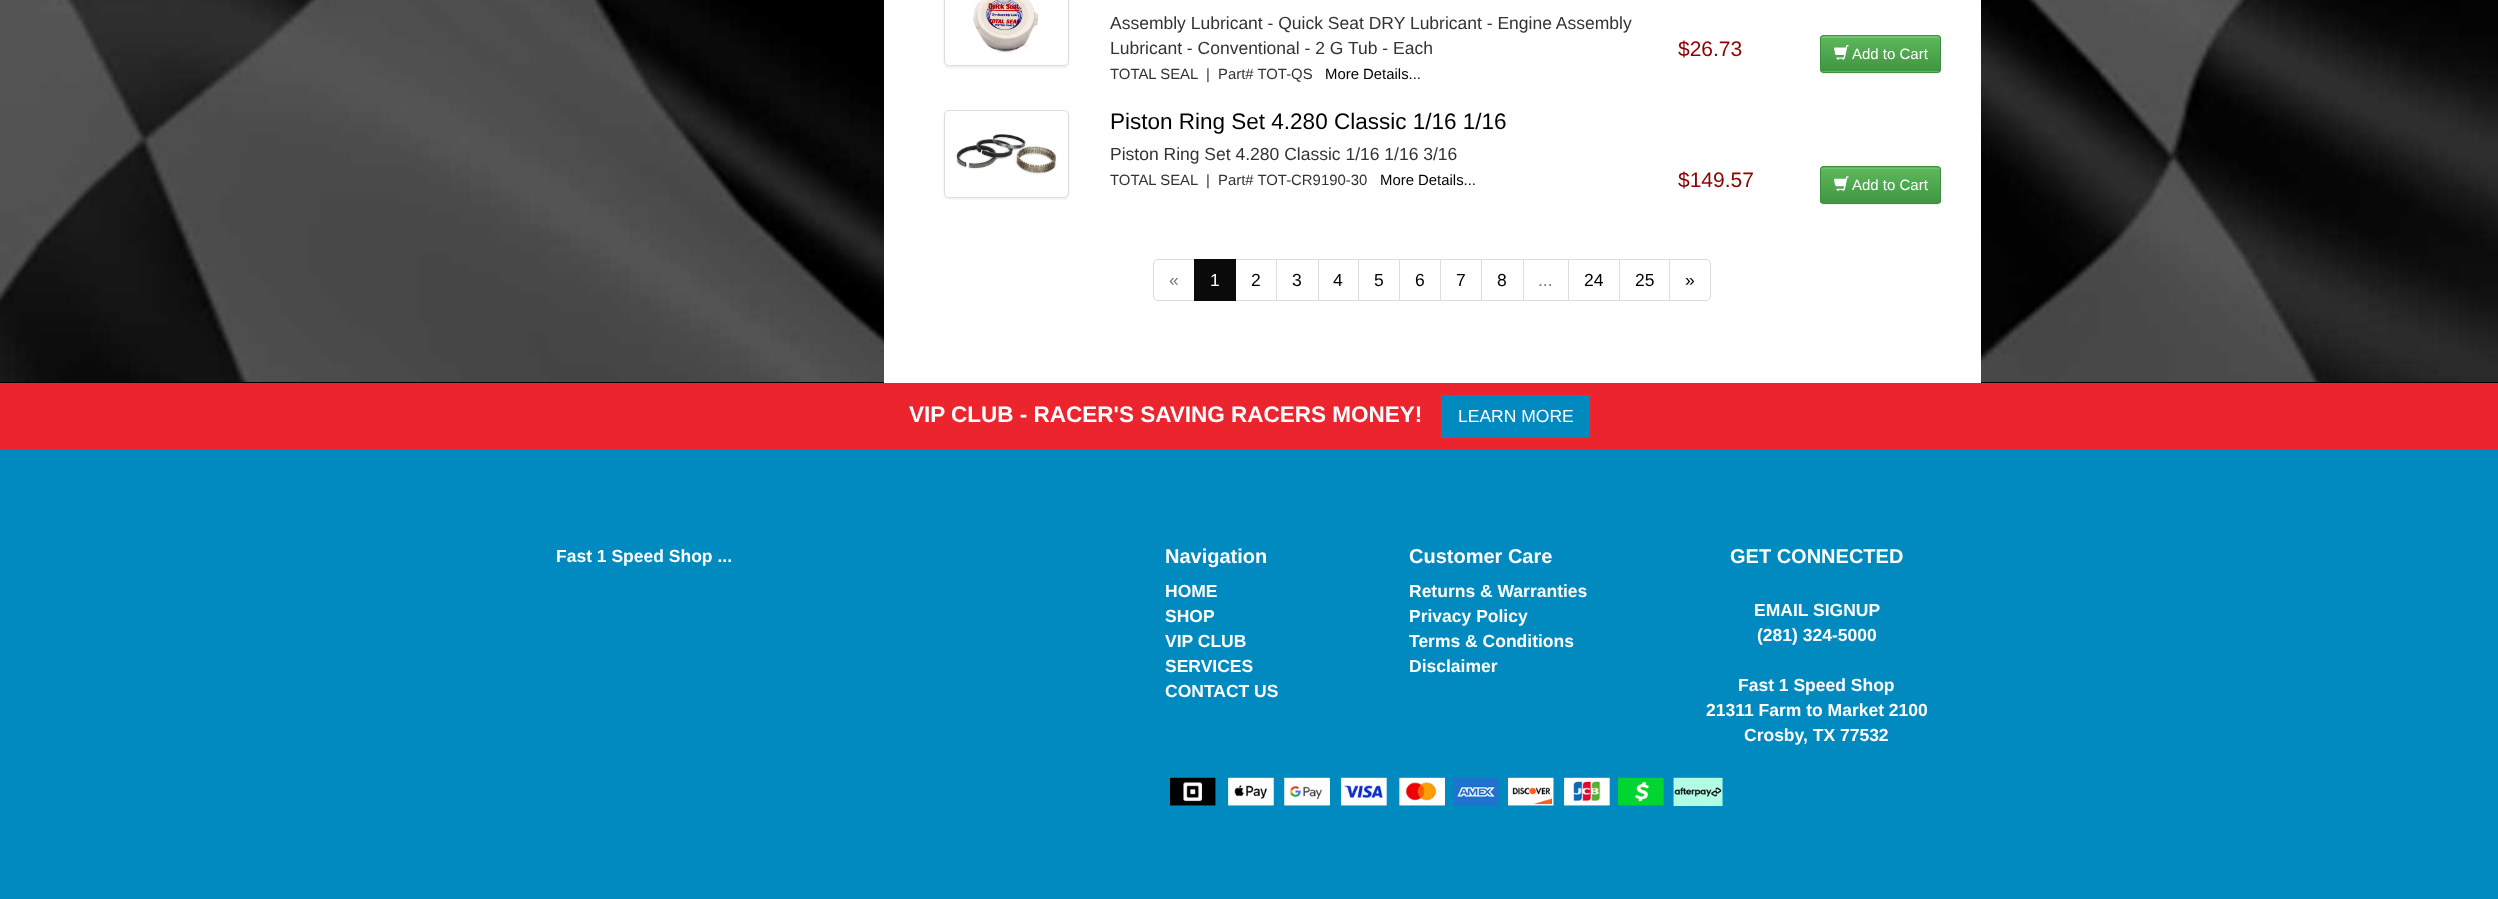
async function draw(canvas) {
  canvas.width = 2498;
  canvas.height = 899;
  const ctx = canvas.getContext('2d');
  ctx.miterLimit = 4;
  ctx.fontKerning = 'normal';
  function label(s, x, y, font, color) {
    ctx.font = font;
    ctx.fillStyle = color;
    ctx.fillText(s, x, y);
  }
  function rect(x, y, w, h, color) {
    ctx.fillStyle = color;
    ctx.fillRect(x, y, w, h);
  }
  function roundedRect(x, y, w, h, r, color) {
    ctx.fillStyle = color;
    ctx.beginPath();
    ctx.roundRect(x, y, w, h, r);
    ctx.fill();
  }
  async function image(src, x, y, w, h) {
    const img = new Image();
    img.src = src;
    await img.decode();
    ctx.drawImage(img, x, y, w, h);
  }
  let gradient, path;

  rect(0, 0, 2498, 899, '#000');
  await image('assets/img1.png', 0, 0, 2498, 382);
  rect(884, 0, 1097, 383, '#fff');
  ctx.fillStyle = '#00000012';
  ctx.filter = 'blur(1px)';
  ctx.beginPath();
  ctx.roundRect(944, -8, 125, 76, 5);
  ctx.fill();
  ctx.filter = 'none';
  ctx.fillStyle = '#fff';
  ctx.beginPath();
  ctx.roundRect(944.5, -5.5, 124, 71, 4.5);
  ctx.fill();
  ctx.strokeStyle = '#ddd';
  ctx.stroke();
  await image('assets/img2.png', 973, 0, 66, 53);
  label('Assembly Lubricant - Quick Seat DRY Lubricant - Engine Assembly', 1110, 29, '17.5px Liberation Sans', '#333');
  label('Lubricant - Conventional - 2 G Tub - Each', 1110, 54, '17.5px Liberation Sans', '#333');
  label('TOTAL SEAL  |', 1110, 79, '14.9px Liberation Sans', '#333');
  label('Part# TOT-QS', 1218, 79, '14.9px Liberation Sans', '#333');
  label('More Details...', 1325, 79, '14.9px Liberation Sans', '#000');
  label('$26.73', 1678, 56, '21px Liberation Sans', '#8b0000');
  ctx.fillStyle = '#00000012';
  ctx.filter = 'blur(0.5px)';
  ctx.beginPath();
  ctx.roundRect(1820, 36, 121, 38, 4);
  ctx.fill();
  ctx.filter = 'none';
  roundedRect(1820, 35, 121, 38, 4, '#5cb85c');
  ctx.save();
  ctx.beginPath();
  ctx.roundRect(1820, 35, 121, 38, 4);
  ctx.clip();
  gradient = ctx.createLinearGradient(1881, 36, 1881, 71);
  gradient.addColorStop(0, '#5cb85c');
  gradient.addColorStop(1, '#419641');
  ctx.fillStyle = gradient;
  ctx.fillRect(1820, 36, 121, 35);
  ctx.restore();
  ctx.fillStyle = '#74c274';
  path = new Path2D('M1824 38H1938C1939 38 1940 39 1940 40V38C1940 37 1939 36 1938 36H1824C1822 36 1821 37 1821 38V40C1821 39 1822 38 1824 38Z');
  ctx.fill(path);
  ctx.beginPath();
  ctx.roundRect(1820.5, 35.5, 120, 37, 3.5);
  ctx.strokeStyle = '#3e8f3e';
  ctx.stroke();
  await image('assets/img3.png', 1834, 45, 15, 15);
  label('Add to Cart', 1852, 59, '15px Liberation Sans', '#fff');
  ctx.fillStyle = '#00000012';
  ctx.filter = 'blur(1px)';
  ctx.beginPath();
  ctx.roundRect(944, 111, 125, 88, 5);
  ctx.fill();
  ctx.filter = 'none';
  ctx.fillStyle = '#fff';
  ctx.beginPath();
  ctx.roundRect(944.5, 110.5, 124, 87, 4.5);
  ctx.fill();
  ctx.strokeStyle = '#ddd';
  ctx.stroke();
  await image('assets/img4.png', 956, 134, 101, 41);
  label('Piston Ring Set 4.280 Classic 1/16 1/16', 1110, 129, '22.5px Liberation Sans', '#000');
  label('Piston Ring Set 4.280 Classic 1/16 1/16 3/16', 1110, 160, '17.5px Liberation Sans', '#333');
  label('TOTAL SEAL  |', 1110, 185, '14.9px Liberation Sans', '#333');
  label('Part# TOT-CR9190-30', 1218, 185, '14.9px Liberation Sans', '#333');
  label('More Details...', 1380, 185, '14.9px Liberation Sans', '#000');
  label('$149.57', 1678, 187, '21px Liberation Sans', '#8b0000');
  ctx.fillStyle = '#00000012';
  ctx.filter = 'blur(0.5px)';
  ctx.beginPath();
  ctx.roundRect(1820, 168, 121, 37, 4);
  ctx.fill();
  ctx.filter = 'none';
  roundedRect(1820, 166, 121, 38, 4, '#5cb85c');
  ctx.save();
  ctx.beginPath();
  ctx.roundRect(1820, 166, 121, 38, 4);
  ctx.clip();
  gradient = ctx.createLinearGradient(1881, 168, 1881, 203);
  gradient.addColorStop(0, '#5cb85c');
  gradient.addColorStop(1, '#419641');
  ctx.fillStyle = gradient;
  ctx.fillRect(1820, 168, 121, 35);
  ctx.restore();
  ctx.fillStyle = '#74c374';
  path = new Path2D('M1824 169H1938C1939 169 1940 170 1940 171V170C1940 169 1939 168 1938 168H1824C1822 168 1821 169 1821 170V171C1821 170 1822 169 1824 169Z');
  ctx.fill(path);
  ctx.beginPath();
  ctx.roundRect(1820.5, 166.5, 120, 37, 3.5);
  ctx.strokeStyle = '#3e8f3e';
  ctx.stroke();
  await image('assets/img5.png', 1834, 176, 15, 16);
  label('Add to Cart', 1852, 190, '15px Liberation Sans', '#fff');
  ctx.beginPath();
  ctx.roundRect(1153.5, 259.5, 41, 41, [4.5, 0, 0, 4.5]);
  ctx.strokeStyle = '#ddd';
  ctx.stroke();
  label('«', 1169, 286, '17.5px Liberation Sans', '#777');
  ctx.strokeRect(1235.5, 259.5, 42, 41);
  rect(1194, 259, 42, 42, '#0a0a0a');
  label('1', 1210, 286, '17.5px Liberation Sans', '#fff');
  label('2', 1251, 286, '17.5px Liberation Sans', '#000');
  rect(1277, 260, 1, 40, '#fff');
  ctx.strokeRect(1276.5, 259.5, 42, 41);
  label('3', 1292, 286, '17.5px Liberation Sans', '#000');
  ctx.strokeRect(1318.5, 259.5, 40, 41);
  label('4', 1333, 286, '17.5px Liberation Sans', '#000');
  ctx.strokeRect(1358.5, 259.5, 41, 41);
  label('5', 1374, 286, '17.5px Liberation Sans', '#000');
  ctx.strokeRect(1399.5, 259.5, 41, 41);
  label('6', 1415, 286, '17.5px Liberation Sans', '#000');
  ctx.strokeRect(1440.5, 259.5, 42, 41);
  label('7', 1456, 286, '17.5px Liberation Sans', '#000');
  rect(1482, 260, 1, 40, '#fff');
  ctx.strokeRect(1481.5, 259.5, 42, 41);
  label('8', 1497, 286, '17.5px Liberation Sans', '#000');
  ctx.strokeRect(1523.5, 259.5, 45, 41);
  label('...', 1538, 286, '17.5px Liberation Sans', '#777');
  ctx.strokeRect(1568.5, 259.5, 51, 41);
  label('24', 1584, 286, '17.5px Liberation Sans', '#000');
  ctx.strokeRect(1619.5, 259.5, 50, 41);
  label('25', 1635, 286, '17.5px Liberation Sans', '#000');
  ctx.fillStyle = '#fff';
  ctx.beginPath();
  ctx.roundRect(1669.5, 259.5, 41, 41, [0, 4.5, 4.5, 0]);
  ctx.fill();
  ctx.stroke();
  label('»', 1685, 286, '17.5px Liberation Sans', '#000');
  rect(0, 383, 2498, 67, '#eb242e');
  label('VIP CLUB - RACER\'S SAVING RACERS MONEY!', 909, 422, 'bold 22.5px Liberation Sans', '#fff');
  rect(1441, 395, 149, 43, '#008abf');
  label('LEARN MORE', 1458, 422, '17.5px Liberation Sans', '#fff');
  rect(0, 450, 2498, 449, '#008abf');
  label('Fast 1 Speed Shop ...', 556, 562, 'bold 17.5px Liberation Sans', '#fff');
  label('Navigation', 1165, 563, 'bold 20px Liberation Sans', '#fff');
  label('HOME', 1165, 597, 'bold 17.5px Liberation Sans', '#fff');
  label('SHOP', 1165, 622, 'bold 17.5px Liberation Sans', '#fff');
  label('VIP CLUB', 1165, 647, 'bold 17.5px Liberation Sans', '#fff');
  label('SERVICES', 1165, 672, 'bold 17.5px Liberation Sans', '#fff');
  label('CONTACT US', 1165, 697, 'bold 17.5px Liberation Sans', '#fff');
  label('Customer Care', 1409, 563, 'bold 20px Liberation Sans', '#fff');
  label('Returns & Warranties', 1409, 597, 'bold 17.5px Liberation Sans', '#fff');
  label('Privacy Policy', 1409, 622, 'bold 17.5px Liberation Sans', '#fff');
  label('Terms & Conditions', 1409, 647, 'bold 17.5px Liberation Sans', '#fff');
  label('Disclaimer', 1409, 672, 'bold 17.5px Liberation Sans', '#fff');
  label('GET CONNECTED', 1730, 563, 'bold 20px Liberation Sans', '#fff');
  label('EMAIL SIGNUP', 1754, 616, 'bold 17.5px Liberation Sans', '#fff');
  label('(281) 324-5000', 1757, 641, 'bold 17.5px Liberation Sans', '#fff');
  label('Fast 1 Speed Shop', 1738, 691, 'bold 17.5px Liberation Sans', '#fff');
  label('21311 Farm to Market 2100', 1706, 716, 'bold 17.5px Liberation Sans', '#fff');
  label('Crosby, TX 77532', 1744, 741, 'bold 17.5px Liberation Sans', '#fff');
  await image('assets/img6.png', 1170, 777, 553, 29);
}

draw(document.querySelector('canvas'));
